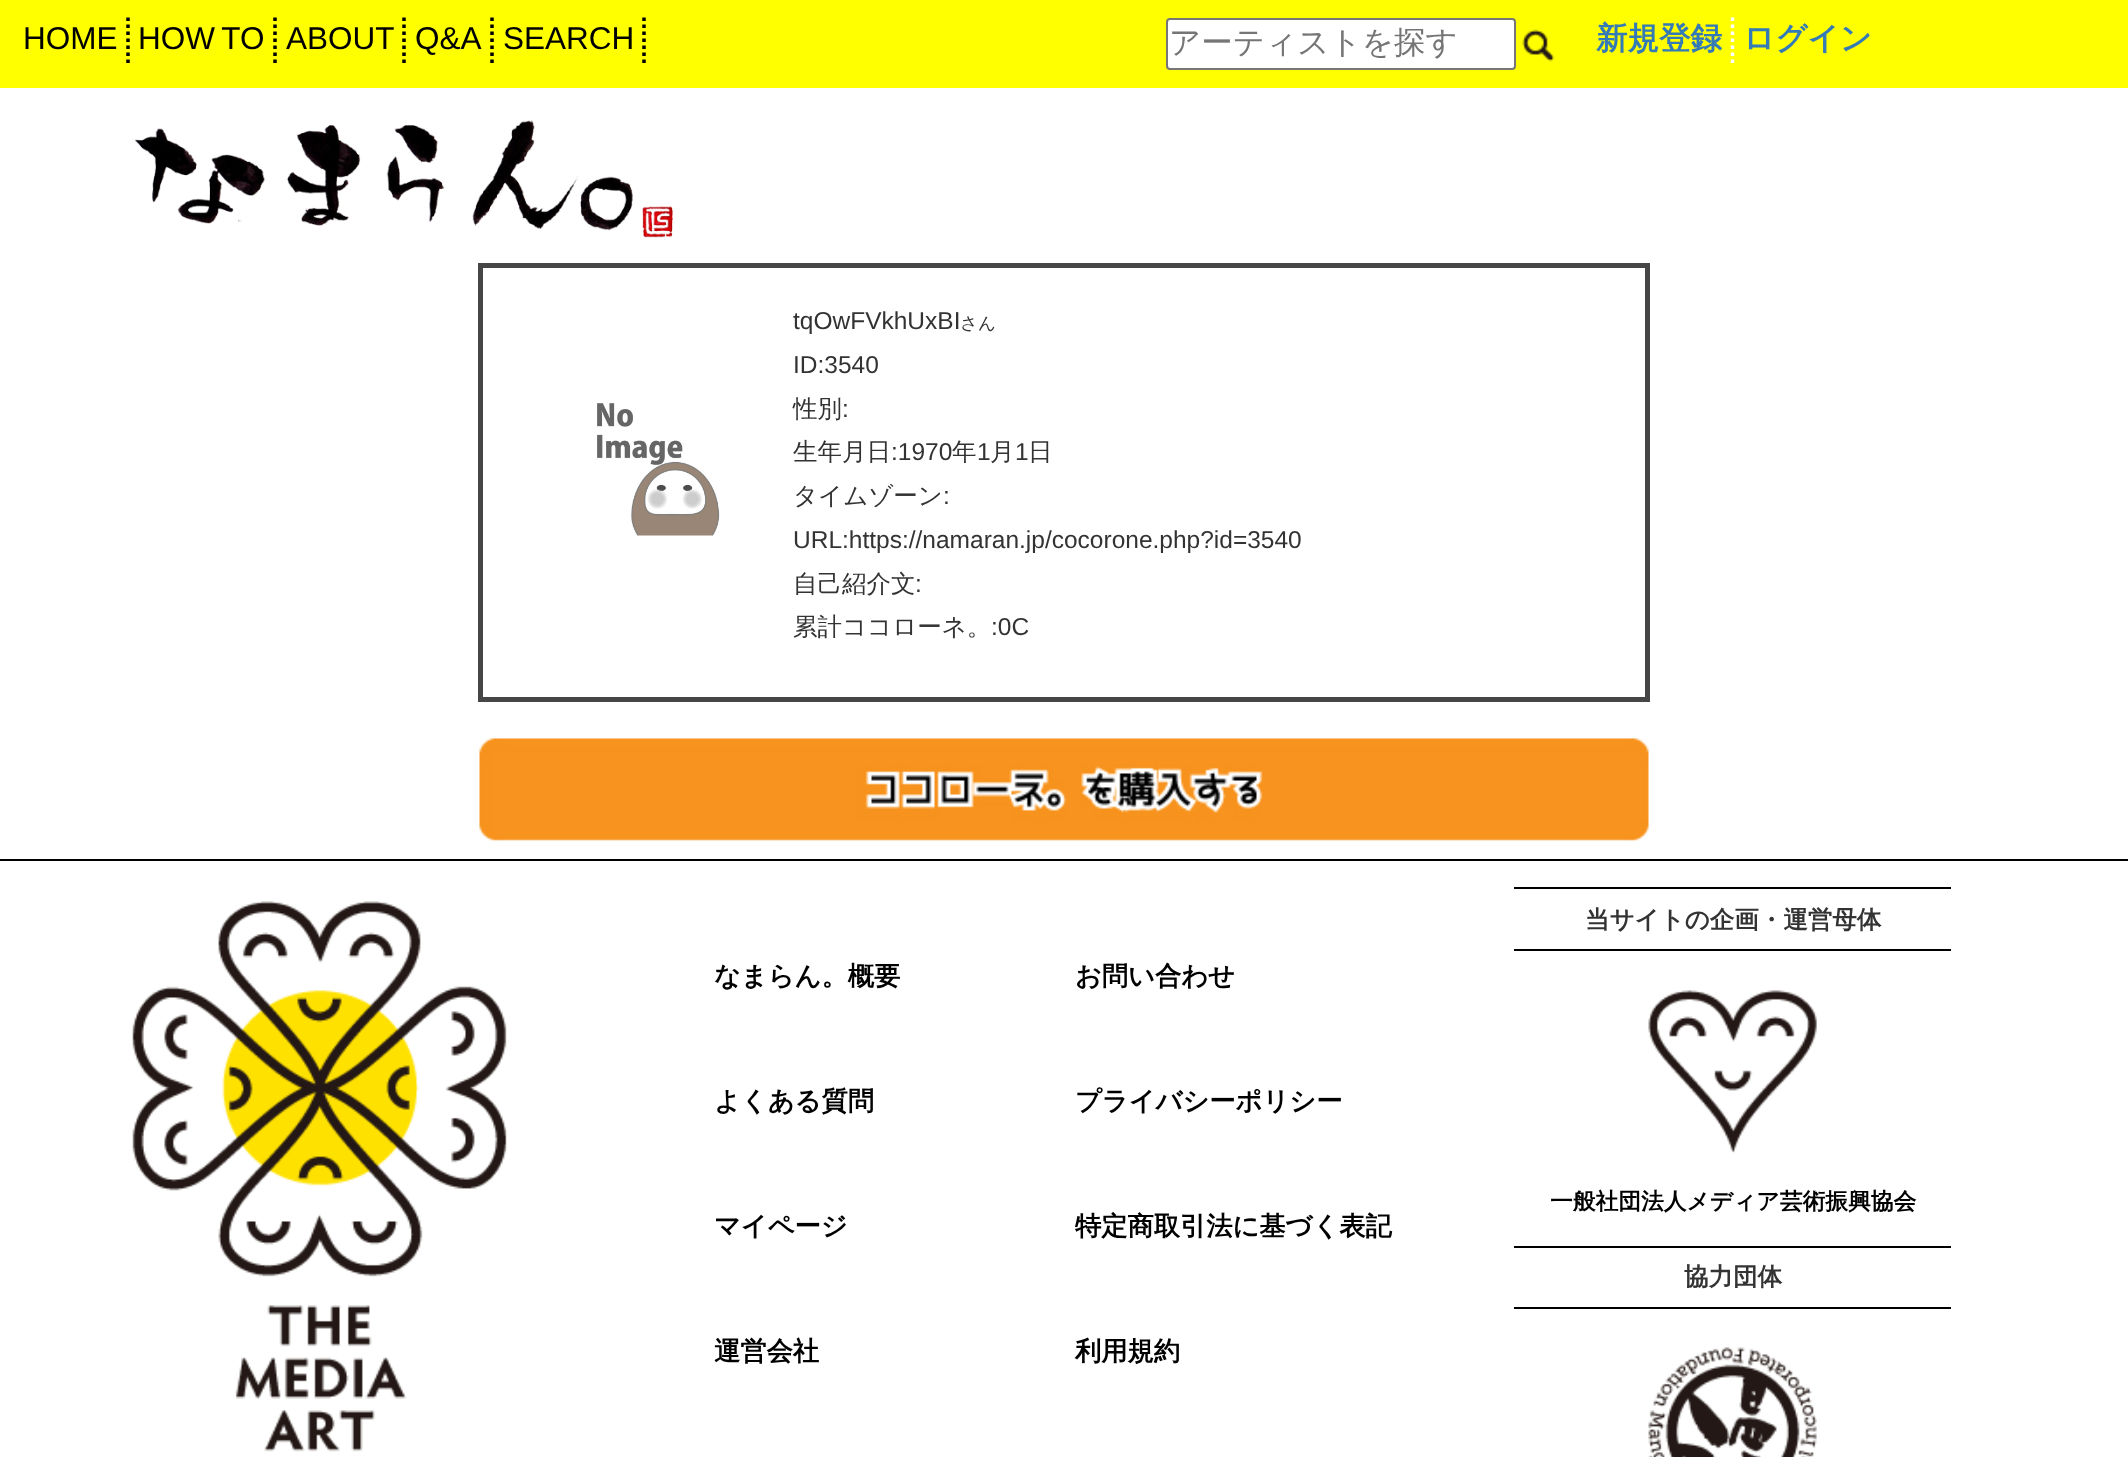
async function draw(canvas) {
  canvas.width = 2128;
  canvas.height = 1457;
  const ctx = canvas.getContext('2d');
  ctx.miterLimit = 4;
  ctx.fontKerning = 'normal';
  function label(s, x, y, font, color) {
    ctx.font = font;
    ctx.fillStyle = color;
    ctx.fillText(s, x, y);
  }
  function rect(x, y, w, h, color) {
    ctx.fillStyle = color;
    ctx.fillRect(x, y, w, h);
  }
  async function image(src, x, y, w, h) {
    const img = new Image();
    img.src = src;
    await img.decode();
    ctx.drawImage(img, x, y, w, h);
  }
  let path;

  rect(0, 0, 2128, 1457, '#fff');
  rect(0, 0, 2128, 88, '#ff0');
  path = new Path2D('M128 17.5V63');
  ctx.strokeStyle = '#000';
  ctx.lineWidth = 3.5;
  ctx.setLineDash([3.5, 3.5]);
  ctx.stroke(path);
  label('HOME', 23, 49, '31.5px Liberation Sans', '#000');
  path = new Path2D('M275 17.5V63');
  ctx.stroke(path);
  label('HOW TO', 138, 49, '31.5px Liberation Sans', '#000');
  path = new Path2D('M404 17.5V63');
  ctx.stroke(path);
  label('ABOUT', 286, 49, '31.5px Liberation Sans', '#000');
  path = new Path2D('M492 17.5V63');
  ctx.stroke(path);
  label('Q&A', 415, 49, '31.5px Liberation Sans', '#000');
  path = new Path2D('M644 17.5V63');
  ctx.stroke(path);
  label('SEARCH', 503, 49, '31.5px Liberation Sans', '#000');
  ctx.fillStyle = '#fff';
  ctx.beginPath();
  ctx.roundRect(1167, 19, 348, 50, 3);
  ctx.fill();
  ctx.strokeStyle = '#767676';
  ctx.lineWidth = 2;
  ctx.setLineDash([]);
  ctx.stroke();
  label('アーティストを探す', 1169, 53, '500 31.5px WenQuanYi Zen Hei', '#757575');
  await image('assets/img1.png', 1522, 29, 33, 33);
  label('新規登録', 1596, 49, 'bold 31.5px WenQuanYi Zen Hei', '#337ab7');
  path = new Path2D('M1732.5 17.5V63');
  ctx.strokeStyle = '#fff';
  ctx.lineWidth = 3.5;
  ctx.setLineDash([3.5, 3.5]);
  ctx.stroke(path);
  label('ログイン', 1743, 49, 'bold 31.5px WenQuanYi Zen Hei', '#337ab7');
  await image('assets/img2.png', 134, 120, 540, 118);
  ctx.strokeStyle = '#464646';
  ctx.lineWidth = 5;
  ctx.setLineDash([]);
  ctx.strokeRect(480.5, 265.5, 1167, 434);
  await image('assets/img3.png', 597, 403, 123, 133);
  label('tqOwFVkhUxBI', 793, 329, '24.5px Liberation Sans', '#333');
  label('さん', 960, 329, '500 17.5px WenQuanYi Zen Hei', '#333');
  label('ID:3540', 793, 373, '24.5px Liberation Sans', '#333');
  label('性別', 793, 417, '500 24.5px WenQuanYi Zen Hei', '#333');
  label(':', 842, 417, '24.5px Liberation Sans', '#333');
  label('生年月日', 793, 460, '500 24.5px WenQuanYi Zen Hei', '#333');
  label(':1970', 891, 460, '24.5px Liberation Sans', '#333');
  label('年', 952, 460, '500 24.5px WenQuanYi Zen Hei', '#333');
  label('1', 977, 460, '24.5px Liberation Sans', '#333');
  label('月', 990, 460, '500 24.5px WenQuanYi Zen Hei', '#333');
  label('1', 1015, 460, '24.5px Liberation Sans', '#333');
  label('日', 1028, 460, '500 24.5px WenQuanYi Zen Hei', '#333');
  label('タイムゾーン', 793, 504, '500 24.5px WenQuanYi Zen Hei', '#333');
  label(':', 943, 504, '24.5px Liberation Sans', '#333');
  label('URL:https://namaran.jp/cocorone.php?id=3540', 793, 548, '24.5px Liberation Sans', '#333');
  label('自己紹介文', 793, 592, '500 24.5px WenQuanYi Zen Hei', '#333');
  label(':', 915, 592, '24.5px Liberation Sans', '#333');
  label('累計ココローネ。', 793, 635, '500 24.5px WenQuanYi Zen Hei', '#333');
  label(':0C', 991, 635, '24.5px Liberation Sans', '#333');
  await image('assets/img4.png', 479, 738, 1170, 103);
  rect(0, 859, 2128, 2, '#000');
  await image('assets/img5.png', 132, 901, 375, 551);
  label('なまらん。概要', 714, 985, 'bold 26.25px WenQuanYi Zen Hei', '#000');
  label('よくある質問', 714, 1110, 'bold 26.25px WenQuanYi Zen Hei', '#000');
  label('マイページ', 714, 1235, 'bold 26.25px WenQuanYi Zen Hei', '#000');
  label('運営会社', 714, 1360, 'bold 26.25px WenQuanYi Zen Hei', '#000');
  label('お問い合わせ', 1075, 985, 'bold 26.25px WenQuanYi Zen Hei', '#000');
  label('プライバシーポリシー', 1075, 1110, 'bold 26.25px WenQuanYi Zen Hei', '#000');
  label('特定商取引法に基づく表記', 1075, 1235, 'bold 26.25px WenQuanYi Zen Hei', '#000');
  label('利用規約', 1075, 1360, 'bold 26.25px WenQuanYi Zen Hei', '#000');
  rect(1514, 887, 437, 2, '#000');
  rect(1514, 949, 437, 2, '#000');
  label('当サイトの企画・運営母体', 1585, 928, 'bold 24.5px WenQuanYi Zen Hei', '#333');
  await image('assets/img6.png', 1648, 990, 169, 163);
  label('一般社団法人メディア芸術振興協会', 1550, 1209, 'bold 22.75px WenQuanYi Zen Hei', '#000');
  rect(1514, 1246, 437, 2, '#000');
  rect(1514, 1307, 437, 2, '#000');
  label('協力団体', 1684, 1285, 'bold 24.5px WenQuanYi Zen Hei', '#333');
  await image('assets/img7.png', 1648, 1347, 169, 110);
}

draw(document.querySelector('canvas'));
